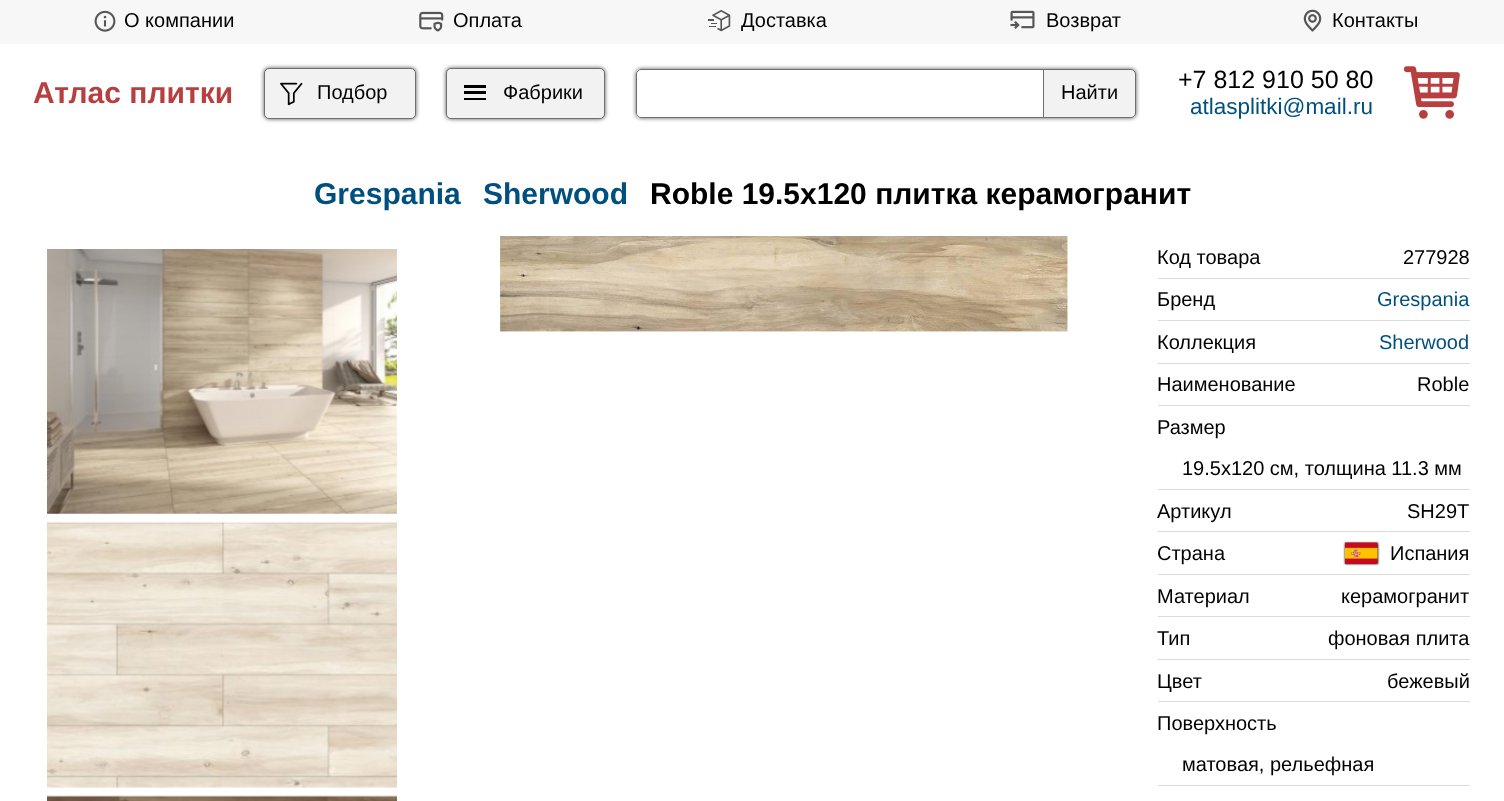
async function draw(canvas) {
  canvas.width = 1504;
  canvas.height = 801;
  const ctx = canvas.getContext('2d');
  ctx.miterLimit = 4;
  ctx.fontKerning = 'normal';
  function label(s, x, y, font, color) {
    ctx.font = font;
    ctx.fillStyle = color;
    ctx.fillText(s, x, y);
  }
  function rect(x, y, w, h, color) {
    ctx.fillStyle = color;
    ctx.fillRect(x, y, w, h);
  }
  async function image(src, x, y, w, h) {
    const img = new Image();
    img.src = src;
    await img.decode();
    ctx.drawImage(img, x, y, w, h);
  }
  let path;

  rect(0, 0, 1504, 801, '#fff');
  rect(0, 0, 1504, 44, '#f7f7f7');
  await image('assets/img1.png', 94, 10, 22, 22);
  label('О компании', 124, 27, '20px Liberation Sans', '#000');
  await image('assets/img2.png', 419, 11, 25, 21);
  label('Оплата', 453, 27, '20px Liberation Sans', '#000');
  await image('assets/img3.png', 708, 10, 23, 22);
  label('Доставка', 741, 27, '20px Liberation Sans', '#000');
  await image('assets/img4.png', 1010, 10, 25, 19);
  label('Возврат', 1046, 27, '20px Liberation Sans', '#000');
  await image('assets/img5.png', 1303, 9, 19, 23);
  label('Контакты', 1332, 27, '20px Liberation Sans', '#000');
  label('Атлас плитки', 33, 103, 'bold 30px Liberation Sans', '#b73f3f');
  ctx.fillStyle = '#555';
  ctx.filter = 'blur(2px)';
  ctx.beginPath();
  ctx.roundRect(264, 68, 152, 51, 5);
  ctx.fill();
  ctx.filter = 'none';
  ctx.fillStyle = '#f2f2f2';
  ctx.beginPath();
  ctx.roundRect(264.5, 68.5, 151, 50, 4.5);
  ctx.fill();
  ctx.strokeStyle = '#6f6f6f';
  ctx.stroke();
  await image('assets/img6.png', 280, 82, 23, 24);
  label('Подбор', 317, 99, '20px Liberation Sans', '#000');
  ctx.fillStyle = '#555';
  ctx.filter = 'blur(2px)';
  ctx.beginPath();
  ctx.roundRect(446, 68, 159, 51, 5);
  ctx.fill();
  ctx.filter = 'none';
  ctx.fillStyle = '#f2f2f2';
  ctx.beginPath();
  ctx.roundRect(446.5, 68.5, 158, 50, 4.5);
  ctx.fill();
  ctx.stroke();
  rect(464, 85, 22, 3, '#000');
  rect(464, 91, 22, 3, '#000');
  rect(464, 98, 22, 2, '#000');
  label('Фабрики', 503, 99, '20px Liberation Sans', '#000');
  ctx.save();
  path = new Path2D('M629 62H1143V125H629ZM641 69H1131C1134 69 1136 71 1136 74V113C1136 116 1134 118 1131 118H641C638 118 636 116 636 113V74C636 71 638 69 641 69Z');
  ctx.clip(path, 'evenodd');
  ctx.fillStyle = '#555';
  ctx.filter = 'blur(2px)';
  ctx.beginPath();
  ctx.roundRect(636, 69, 500, 49, 5);
  ctx.fill();
  ctx.filter = 'none';
  ctx.restore();
  ctx.beginPath();
  ctx.roundRect(636.5, 69.5, 499, 48, 4.5);
  ctx.stroke();
  ctx.fillStyle = '#f2f2f2';
  ctx.beginPath();
  ctx.roundRect(1043.5, 69.5, 92, 48, [0, 4.5, 4.5, 0]);
  ctx.fill();
  ctx.stroke();
  label('Найти', 1061, 99, '20px Liberation Sans', '#000');
  label('+7 812 910 50 80', 1178, 88, '25px Liberation Sans', '#000');
  label('atlasplitki@mail.ru', 1190, 114, '22.5px Liberation Sans', '#00507f');
  await image('assets/img7.png', 1404, 66, 56, 53);
  label('Grespania', 314, 204, 'bold 30px Liberation Sans', '#00507f');
  label('Sherwood', 483, 204, 'bold 30px Liberation Sans', '#00507f');
  label('Roble 19.5x120 плитка керамогранит', 650, 204, 'bold 30px Liberation Sans', '#000');
  await image('assets/img8.png', 47, 249, 350, 265);
  await image('assets/img9.png', 47, 521, 350, 267);
  await image('assets/img10.png', 47, 795, 350, 6);
  await image('assets/img11.png', 500, 236, 568, 96);
  rect(1158, 278, 312, 1, '#dbdbdb');
  label('Код товара', 1157, 264, '20px Liberation Sans', '#000');
  label('277928', 1403, 264, '20px Liberation Sans', '#000');
  rect(1158, 320, 312, 1, '#dbdbdb');
  label('Бренд', 1157, 306, '20px Liberation Sans', '#000');
  label('Grespania', 1377, 306, '20px Liberation Sans', '#00507f');
  rect(1158, 363, 312, 1, '#dbdbdb');
  label('Коллекция', 1157, 349, '20px Liberation Sans', '#000');
  label('Sherwood', 1379, 349, '20px Liberation Sans', '#00507f');
  rect(1158, 405, 312, 1, '#dbdbdb');
  label('Наименование', 1157, 391, '20px Liberation Sans', '#000');
  label('Roble', 1417, 391, '20px Liberation Sans', '#000');
  rect(1158, 489, 312, 1, '#dbdbdb');
  label('Размер', 1157, 434, '20px Liberation Sans', '#000');
  label('19.5x120 см, толщина 11.3 мм', 1182, 475, '20px Liberation Sans', '#000');
  rect(1158, 531, 312, 1, '#dbdbdb');
  label('Артикул', 1157, 518, '20px Liberation Sans', '#000');
  label('SH29T', 1407, 518, '20px Liberation Sans', '#000');
  rect(1158, 574, 312, 1, '#dbdbdb');
  label('Страна', 1157, 560, '20px Liberation Sans', '#000');
  ctx.filter = 'blur(1px)';
  ctx.beginPath();
  ctx.rect(1345, 543, 33, 21);
  ctx.fill();
  ctx.filter = 'none';
  await image('assets/img12.png', 1345, 542, 33, 22);
  label('Испания', 1390, 560, '20px Liberation Sans', '#000');
  rect(1158, 616, 312, 1, '#dbdbdb');
  label('Материал', 1157, 603, '20px Liberation Sans', '#000');
  label('керамогранит', 1341, 603, '20px Liberation Sans', '#000');
  rect(1158, 659, 312, 1, '#dbdbdb');
  label('Тип', 1157, 645, '20px Liberation Sans', '#000');
  label('фоновая плита', 1328, 645, '20px Liberation Sans', '#000');
  rect(1158, 701, 312, 1, '#dbdbdb');
  label('Цвет', 1157, 688, '20px Liberation Sans', '#000');
  label('бежевый', 1387, 688, '20px Liberation Sans', '#000');
  rect(1158, 785, 312, 1, '#dbdbdb');
  label('Поверхность', 1157, 730, '20px Liberation Sans', '#000');
  label('матовая, рельефная', 1182, 771, '20px Liberation Sans', '#000');
}

draw(document.querySelector('canvas'));
